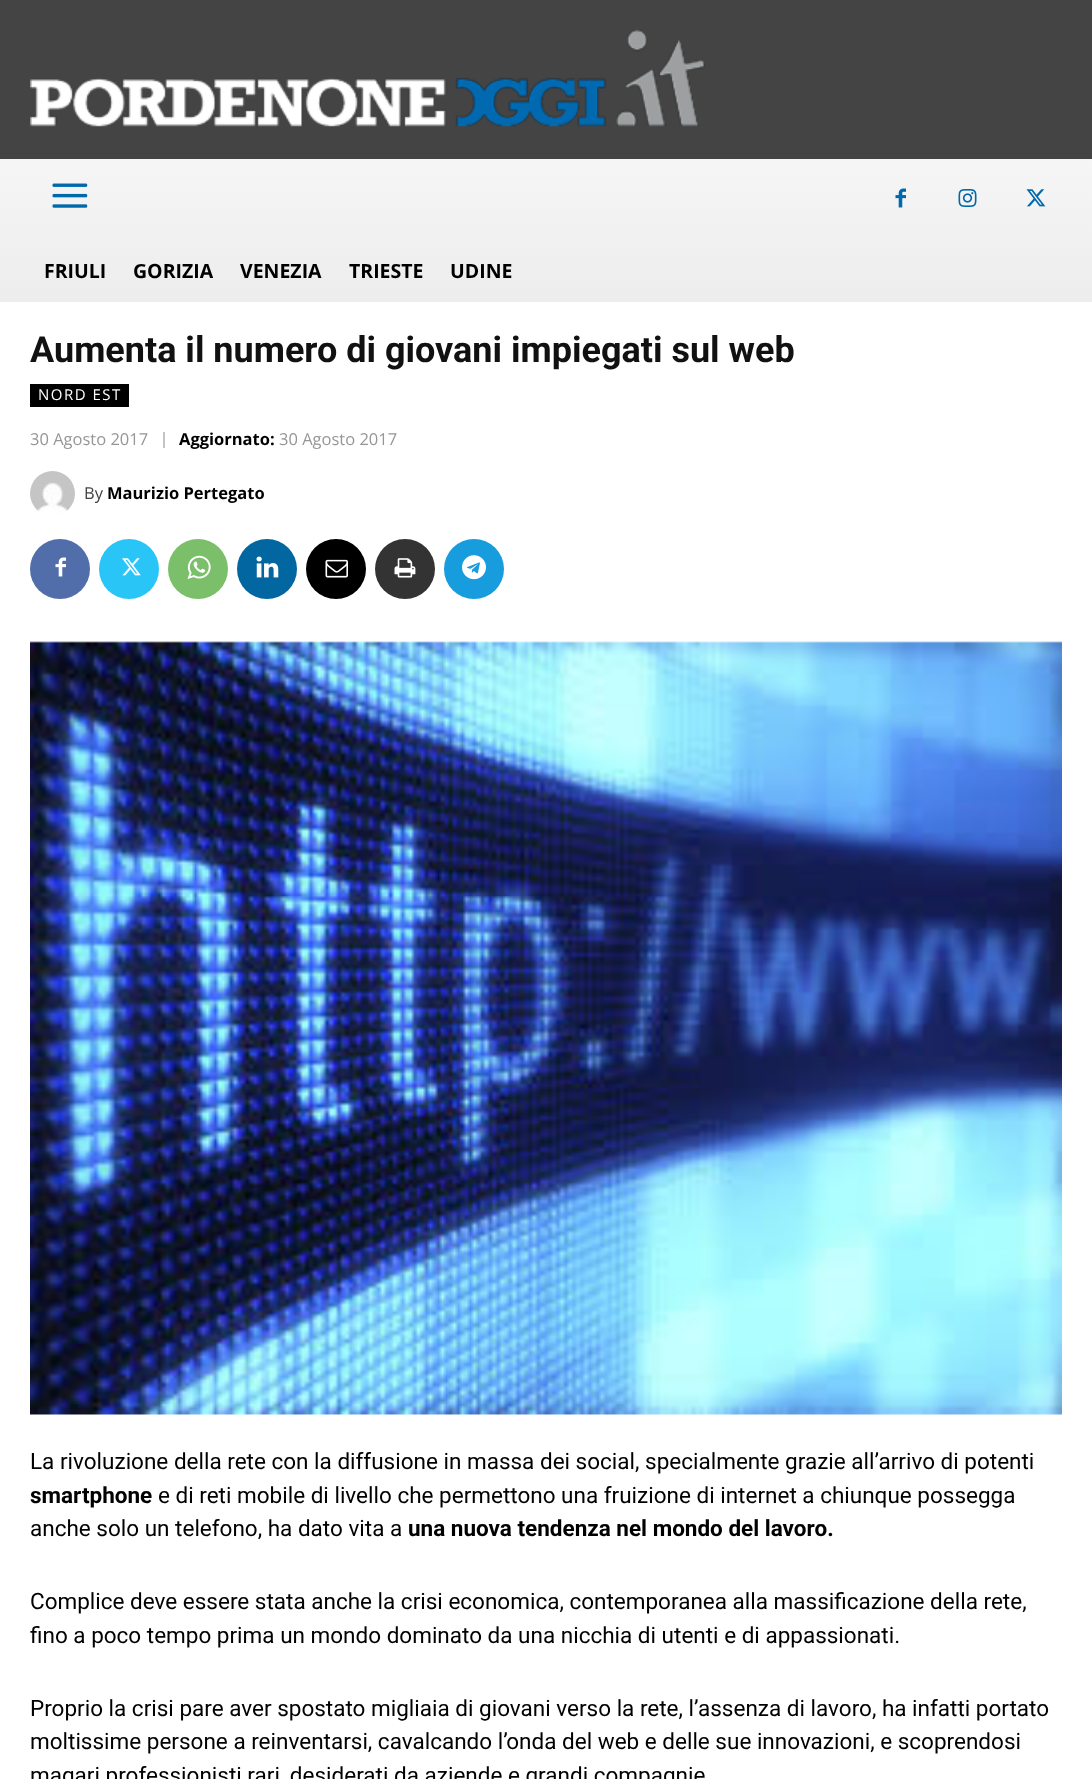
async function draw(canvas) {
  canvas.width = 1092;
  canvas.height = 1779;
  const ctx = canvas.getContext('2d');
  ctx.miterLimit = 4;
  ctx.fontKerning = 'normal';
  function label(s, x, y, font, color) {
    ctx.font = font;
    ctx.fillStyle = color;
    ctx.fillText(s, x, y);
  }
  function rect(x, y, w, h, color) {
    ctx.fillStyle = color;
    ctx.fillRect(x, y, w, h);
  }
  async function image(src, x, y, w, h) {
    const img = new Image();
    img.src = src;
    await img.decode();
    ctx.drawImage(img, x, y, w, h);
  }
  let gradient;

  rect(0, 0, 1092, 1779, '#fff');
  rect(0, 0, 1092, 159, '#444');
  await image('assets/img1.png', 30, 30, 675, 97);
  gradient = ctx.createLinearGradient(546, 302, 546, 0);
  gradient.addColorStop(0, '#ededed');
  gradient.addColorStop(1, '#fff');
  ctx.fillStyle = gradient;
  ctx.fillRect(0, 159, 1092, 143);
  await image('assets/img2.png', 52, 183, 36, 25);
  await image('assets/img3.png', 895, 188, 11, 20);
  await image('assets/img4.png', 958, 189, 19, 18);
  await image('assets/img5.png', 1026, 189, 20, 18);
  label('FRIULI', 44, 278, 'bold 19.5px Open Sans', '#000');
  label('GORIZIA', 133, 278, 'bold 19.5px Open Sans', '#000');
  label('VENEZIA', 240, 278, 'bold 19.5px Open Sans', '#000');
  label('TRIESTE', 349, 278, 'bold 19.5px Open Sans', '#000');
  label('UDINE', 450, 278, 'bold 19.5px Open Sans', '#000');
  label('Aumenta il numero di giovani impiegati sul web', 30, 362, 'bold 36px Roboto', '#111');
  rect(30, 384, 99, 23, '#000');
  ctx.letterSpacing = '1.5px';
  label('NORD EST', 38, 400, '15px Open Sans', '#fff');
  ctx.letterSpacing = '0px';
  label('30 Agosto 2017', 30, 445, '16.5px Open Sans', '#969696');
  rect(163, 432, 2, 16, '#c4c4c4');
  label('Aggiornato:', 179, 445, 'bold 16.5px Open Sans', '#000');
  label('30 Agosto 2017', 279, 445, '16.5px Open Sans', '#969696');
  await image('assets/img6.png', 30, 471, 45, 42);
  label('By', 84, 499, '16.5px Open Sans', '#444');
  label('Maurizio Pertegato', 107, 499, 'bold 16.5px Open Sans', '#000');
  ctx.fillStyle = '#516eab';
  ctx.beginPath();
  ctx.arc(60, 569, 30, 0, 2 * Math.PI);
  ctx.fill();
  await image('assets/img7.png', 55, 557, 11, 20);
  ctx.fillStyle = '#29c5f6';
  ctx.beginPath();
  ctx.arc(129, 569, 30, 0, 2 * Math.PI);
  ctx.fill();
  await image('assets/img8.png', 122, 558, 19, 18);
  ctx.fillStyle = '#7bbf6a';
  ctx.beginPath();
  ctx.arc(198, 569, 30, 0, 2 * Math.PI);
  ctx.fill();
  await image('assets/img9.png', 187, 555, 24, 24);
  ctx.fillStyle = '#0266a0';
  ctx.beginPath();
  ctx.arc(267, 569, 30, 0, 2 * Math.PI);
  ctx.fill();
  await image('assets/img10.png', 256, 556, 23, 22);
  ctx.fillStyle = '#000';
  ctx.beginPath();
  ctx.arc(336, 569, 30, 0, 2 * Math.PI);
  ctx.fill();
  await image('assets/img11.png', 325, 559, 23, 19);
  ctx.fillStyle = '#333';
  ctx.beginPath();
  ctx.arc(405, 569, 30, 0, 2 * Math.PI);
  ctx.fill();
  await image('assets/img12.png', 394, 558, 22, 20);
  ctx.fillStyle = '#179cde';
  ctx.beginPath();
  ctx.arc(474, 569, 30, 0, 2 * Math.PI);
  ctx.fill();
  await image('assets/img13.png', 462, 555, 24, 25);
  await image('assets/img14.png', 30, 641, 1032, 774);
  label('La rivoluzione della rete con la diffusione in massa dei social, specialmente grazie all’arrivo di potenti', 30, 1469, '22.5px Roboto', '#000');
  label('smartphone', 30, 1503, 'bold 22.5px Roboto', '#000');
  label('e di reti mobile di livello che permettono una fruizione di internet a chiunque possegga', 158, 1503, '22.5px Roboto', '#000');
  label('anche solo un telefono, ha dato vita a', 30, 1536, '22.5px Roboto', '#000');
  label('una nuova tendenza nel mondo del lavoro.', 408, 1536, 'bold 22.5px Roboto', '#000');
  label('Complice deve essere stata anche la crisi economica, contemporanea alla massificazione della rete,', 30, 1609, '22.5px Roboto', '#000');
  label('fino a poco tempo prima un mondo dominato da una nicchia di utenti e di appassionati.', 30, 1643, '22.5px Roboto', '#000');
  label('Proprio la crisi pare aver spostato migliaia di giovani verso la rete, l’assenza di lavoro, ha infatti portato', 30, 1716, '22.5px Roboto', '#000');
  label('moltissime persone a reinventarsi, cavalcando l’onda del web e delle sue innovazioni, e scoprendosi', 30, 1749, '22.5px Roboto', '#000');
  label('magari professionisti rari, desiderati da aziende e grandi compagnie', 30, 1783, '22.5px Roboto', '#000');
}

draw(document.querySelector('canvas'));
